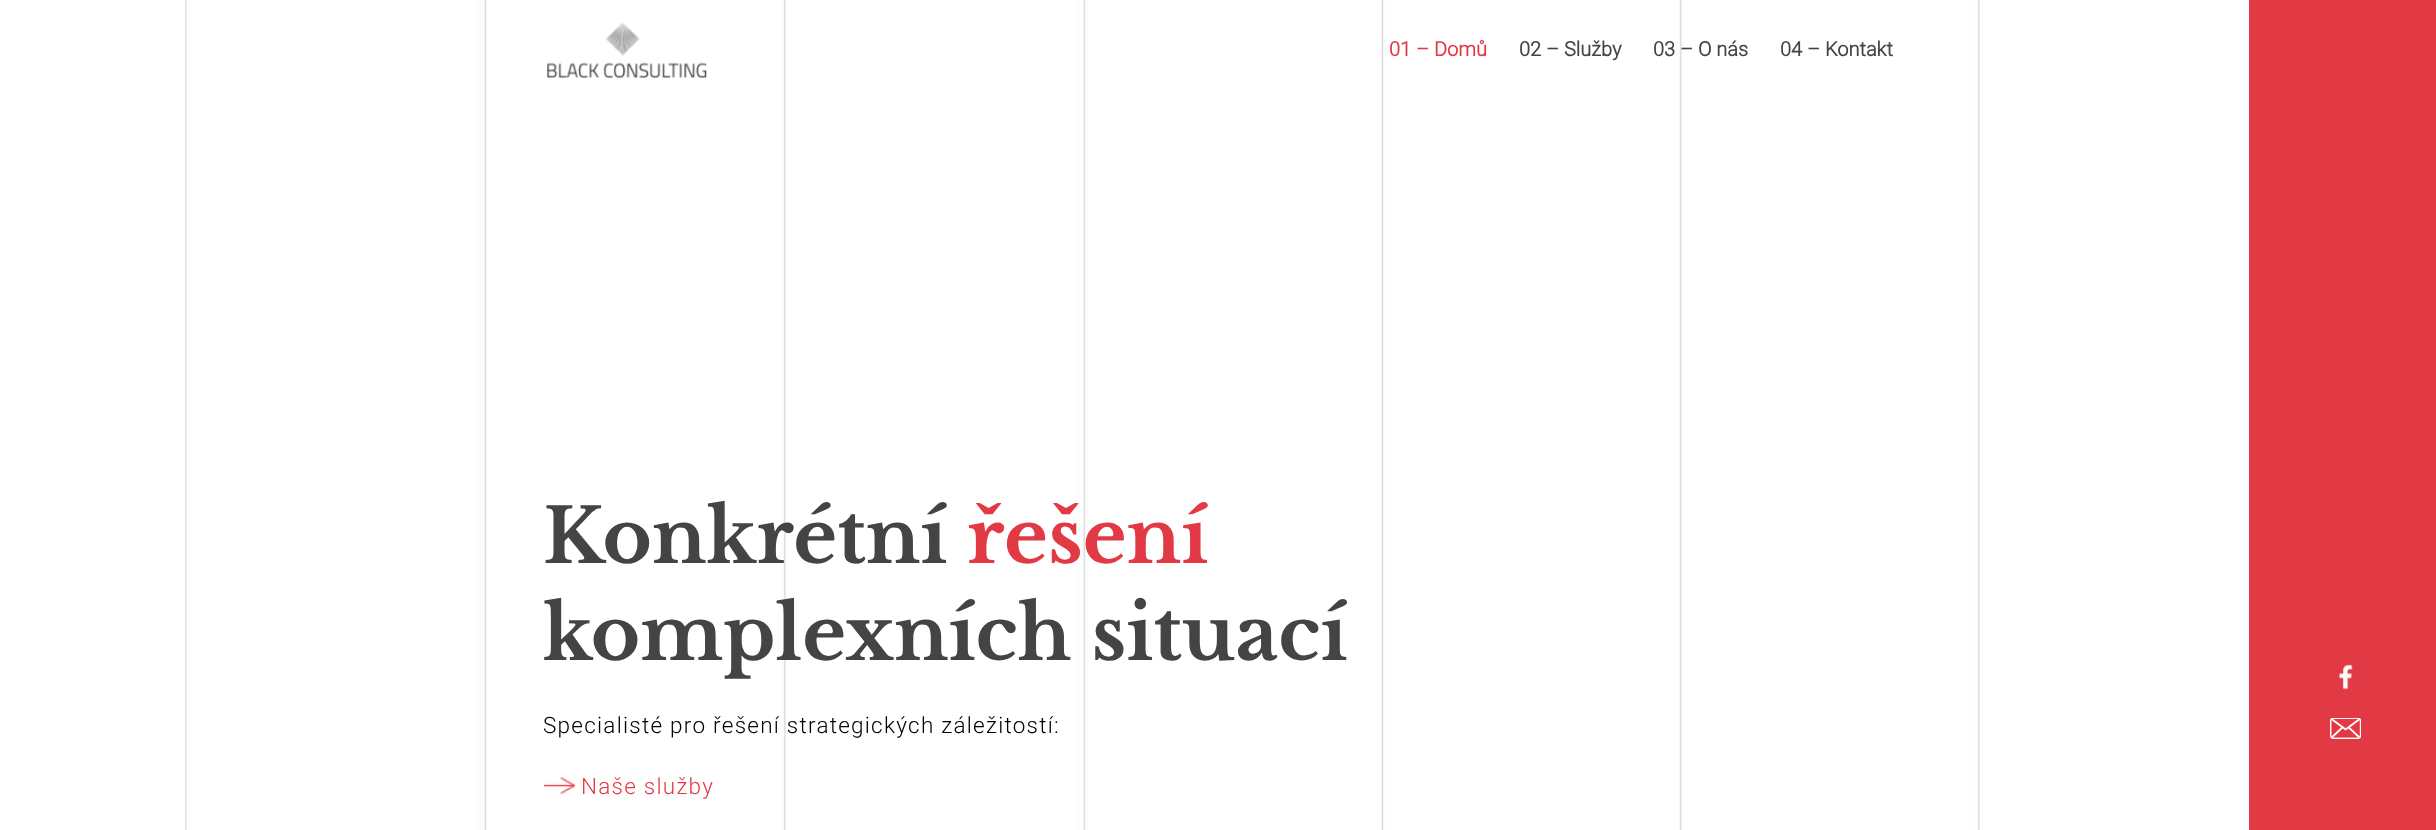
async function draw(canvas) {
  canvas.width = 2436;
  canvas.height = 830;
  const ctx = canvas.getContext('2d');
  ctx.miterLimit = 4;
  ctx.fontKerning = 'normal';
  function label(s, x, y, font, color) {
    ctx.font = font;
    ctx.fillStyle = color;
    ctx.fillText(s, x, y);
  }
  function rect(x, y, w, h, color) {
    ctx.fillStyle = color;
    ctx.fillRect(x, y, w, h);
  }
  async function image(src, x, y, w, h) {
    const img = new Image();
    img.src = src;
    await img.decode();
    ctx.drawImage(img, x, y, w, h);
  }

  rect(0, 0, 2436, 830, '#fff');
  await image('assets/img4.png', 185, 0, 2064, 830);
  await image('assets/img1.png', 547, 22, 160, 56);
  label('01 – Domů', 1389, 56, 'bold 20px Roboto', '#e13a44');
  label('02 – Služby', 1519, 56, 'bold 20px Roboto', '#444');
  label('03 – O nás', 1653, 56, 'bold 20px Roboto', '#444');
  label('04 – Kontakt', 1780, 56, 'bold 20px Roboto', '#444');
  rect(2249, 0, 187, 830, '#e13a44');
  await image('assets/img2.png', 2339, 664, 14, 26);
  await image('assets/img3.png', 2330, 718, 31, 21);
  label('Konkrétní', 543, 563, 'bold 75px Libre Baskerville', '#444');
  label('řešení', 967, 563, 'bold 75px Libre Baskerville', '#e13a44');
  label('komplexních situací', 543, 660, 'bold 75px Libre Baskerville', '#444');
  ctx.letterSpacing = '1.25px';
  label('Specialisté pro řešení strategických záležitostí:', 543, 733, '300 22.5px Roboto', '#000');
  await image('assets/img5.png', 543, 777, 32, 17);
  label('Naše služby', 581, 794, '300 22.5px Roboto', '#e13a44');
}

draw(document.querySelector('canvas'));
